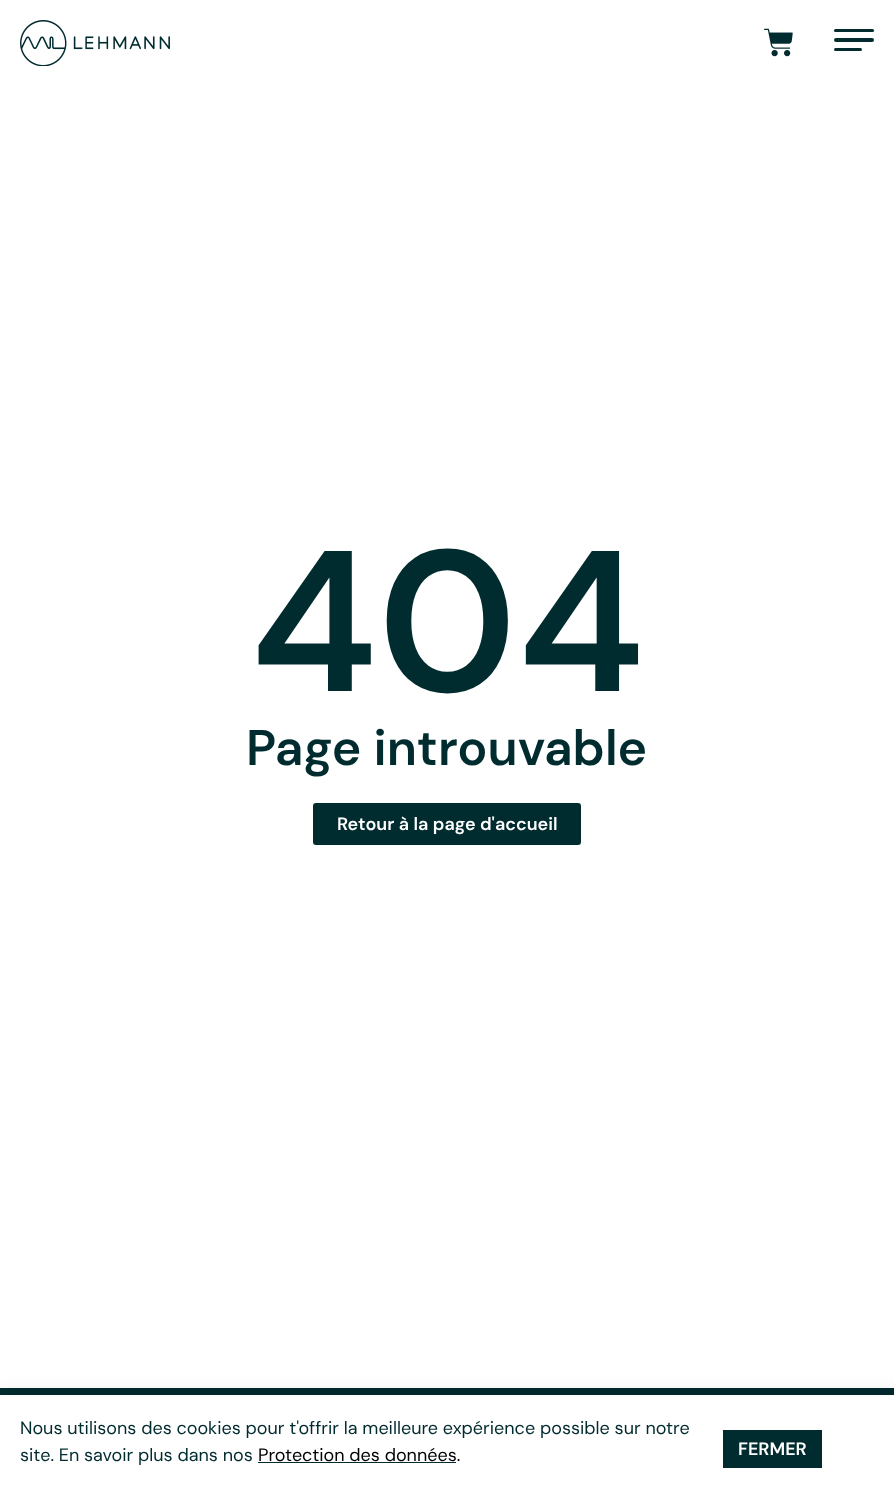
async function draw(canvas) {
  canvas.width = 894;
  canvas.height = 1503;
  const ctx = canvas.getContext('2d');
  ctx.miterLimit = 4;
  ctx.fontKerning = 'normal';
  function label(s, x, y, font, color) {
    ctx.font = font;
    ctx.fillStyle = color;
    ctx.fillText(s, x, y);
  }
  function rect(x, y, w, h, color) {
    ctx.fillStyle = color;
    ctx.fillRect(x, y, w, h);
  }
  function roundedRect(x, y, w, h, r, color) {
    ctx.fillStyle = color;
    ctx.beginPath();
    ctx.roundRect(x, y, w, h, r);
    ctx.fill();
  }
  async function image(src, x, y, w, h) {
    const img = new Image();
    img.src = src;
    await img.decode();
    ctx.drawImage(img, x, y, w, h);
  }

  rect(0, 0, 894, 1503, '#fff');
  await image('assets/img1.png', 20, 20, 150, 46);
  await image('assets/img2.png', 764, 28, 29, 29);
  roundedRect(834, 29, 40, 3, 1.5, '#002b2f');
  roundedRect(834, 38, 40, 4, 2, '#002b2f');
  roundedRect(834, 48, 28, 3, 1.5, '#002b2f');
  label('404', 250, 691, '600 200px DM Sans', '#002b2f');
  label('Page introuvable', 246, 765, '600 50px DM Sans', '#002b2f');
  roundedRect(313, 803, 268, 42, 3, '#002b2f');
  label('Retour à la page d\'accueil', 337, 830, '600 18px DM Sans', '#fff');
  rect(0, 1388, 894, 7, '#002b2f');
  ctx.fillStyle = '#00000033';
  ctx.filter = 'blur(11.5px)';
  ctx.beginPath();
  ctx.rect(-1, 1400, 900, 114);
  ctx.fill();
  ctx.filter = 'none';
  rect(0, 1395, 894, 108, '#fff');
  label('Nous utilisons des cookies pour t\'offrir la meilleure expérience possible sur notre', 20, 1434, '18px DM Sans', '#002b2f');
  label('site. En savoir plus dans nos', 20, 1461, '18px DM Sans', '#002b2f');
  label('Protection des données.', 258, 1461, '18px DM Sans', '#000');
  rect(258, 1462, 198, 1, '#002b2f');
  rect(723, 1430, 99, 38, '#002b2f');
  label('FERMER', 738, 1455, '600 18px DM Sans', '#fff');
}

draw(document.querySelector('canvas'));
